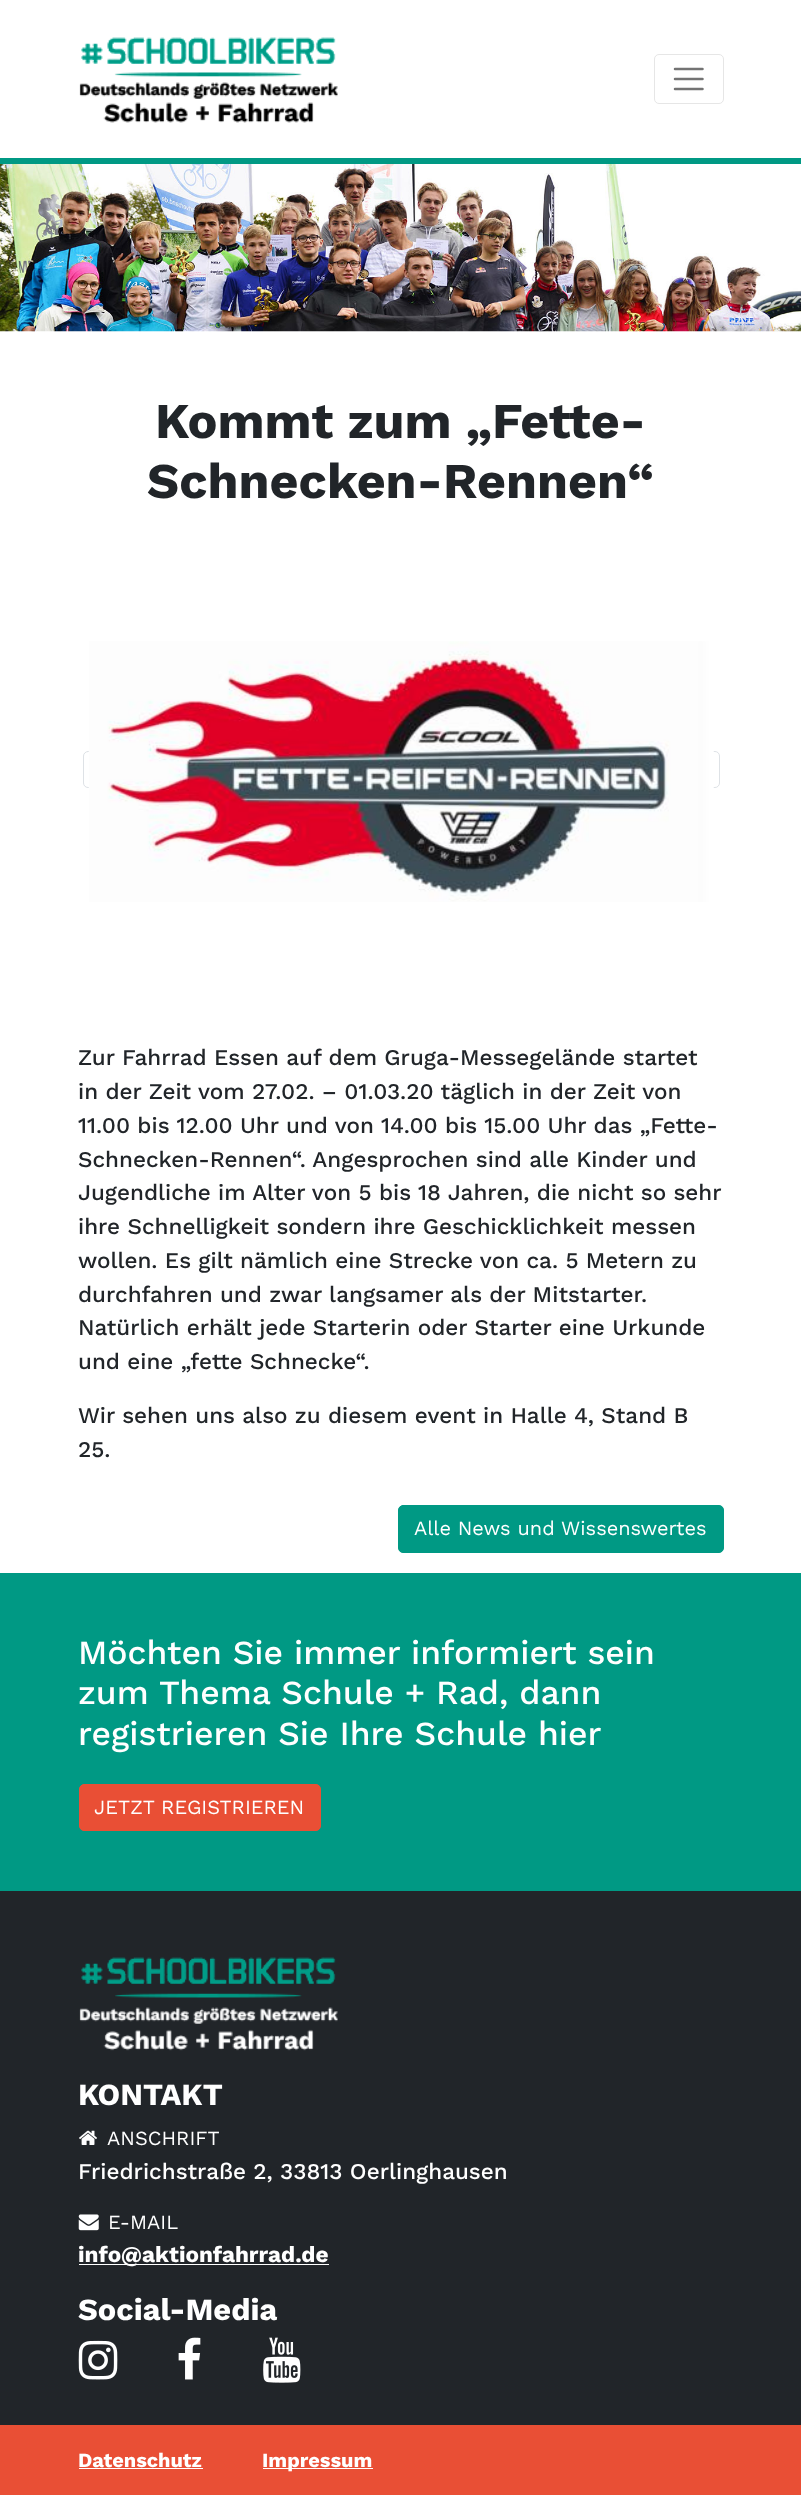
async function draw(canvas) {
  canvas.width = 801;
  canvas.height = 2506;
  const ctx = canvas.getContext('2d');
  ctx.miterLimit = 4;
  ctx.fontKerning = 'normal';
  function label(s, x, y, font, color) {
    ctx.font = font;
    ctx.fillStyle = color;
    ctx.fillText(s, x, y);
  }
  function rect(x, y, w, h, color) {
    ctx.fillStyle = color;
    ctx.fillRect(x, y, w, h);
  }
  async function image(src, x, y, w, h) {
    const img = new Image();
    img.src = src;
    await img.decode();
    ctx.drawImage(img, x, y, w, h);
  }
  let path;

  rect(0, 0, 801, 2506, '#fff');
  rect(0, 158, 801, 6, '#009984');
  await image('assets/img1.png', 79, 37, 259, 86);
  ctx.beginPath();
  ctx.roundRect(654.5, 54.5, 69, 49, 4.5);
  ctx.strokeStyle = '#e6e6e6';
  ctx.stroke();
  path = new Path2D('M675 69H702.5M675 79H702.5M675 89H702.5');
  ctx.strokeStyle = '#737373';
  ctx.lineWidth = 2.5;
  ctx.lineCap = 'round';
  ctx.stroke(path);
  await image('assets/img2.png', 0, 164, 801, 168);
  label('Kommt zum „Fette-', 155, 438, 'bold 50px Work Sans', '#212529');
  label('Schnecken-Rennen“', 147, 498, 'bold 50px Work Sans', '#212529');
  ctx.beginPath();
  ctx.roundRect(83.5, 751.5, 636, 36, 4.5);
  ctx.strokeStyle = '#dee2e6';
  ctx.lineWidth = 1;
  ctx.stroke();
  await image('assets/img3.png', 88, 641, 626, 261);
  label('Zur Fahrrad Essen auf dem Gruga-Messegelände startet', 78, 1065, '500 22.5px Work Sans', '#212529');
  label('in der Zeit vom 27.02. – 01.03.20 täglich in der Zeit von', 78, 1099, '500 22.5px Work Sans', '#212529');
  label('11.00 bis 12.00 Uhr und von 14.00 bis 15.00 Uhr das „Fette-', 78, 1133, '500 22.5px Work Sans', '#212529');
  label('Schnecken-Rennen“. Angesprochen sind alle Kinder und', 78, 1167, '500 22.5px Work Sans', '#212529');
  label('Jugendliche im Alter von 5 bis 18 Jahren, die nicht so sehr', 78, 1200, '500 22.5px Work Sans', '#212529');
  label('ihre Schnelligkeit sondern ihre Geschicklichkeit messen', 78, 1234, '500 22.5px Work Sans', '#212529');
  label('wollen. Es gilt nämlich eine Strecke von ca. 5 Metern zu', 78, 1268, '500 22.5px Work Sans', '#212529');
  label('durchfahren und zwar langsamer als der Mitstarter.', 78, 1302, '500 22.5px Work Sans', '#212529');
  label('Natürlich erhält jede Starterin oder Starter eine Urkunde', 78, 1335, '500 22.5px Work Sans', '#212529');
  label('und eine „fette Schnecke“.', 78, 1369, '500 22.5px Work Sans', '#212529');
  label('Wir sehen uns also zu diesem event in Halle 4, Stand B', 78, 1423, '500 22.5px Work Sans', '#212529');
  label('25.', 78, 1457, '500 22.5px Work Sans', '#212529');
  ctx.fillStyle = '#009984';
  ctx.beginPath();
  ctx.roundRect(398.5, 1505.5, 325, 47, 4.5);
  ctx.fill();
  ctx.strokeStyle = '#009984';
  ctx.stroke();
  label('Alle News und Wissenswertes', 414, 1535, '20px Work Sans', '#fff');
  rect(0, 1573, 801, 318, '#009984');
  label('Möchten Sie immer informiert sein', 78, 1664, '500 33.75px Work Sans', '#fff');
  label('zum Thema Schule + Rad, dann', 78, 1704, '500 33.75px Work Sans', '#fff');
  label('registrieren Sie Ihre Schule hier', 78, 1745, '500 33.75px Work Sans', '#fff');
  ctx.fillStyle = '#e94f35';
  ctx.beginPath();
  ctx.roundRect(79.5, 1784.5, 241, 46, 4.5);
  ctx.fill();
  ctx.strokeStyle = '#e94f35';
  ctx.stroke();
  label('JETZT REGISTRIEREN', 94, 1814, '20px Work Sans', '#fff');
  rect(0, 1891, 801, 534, '#212529');
  await image('assets/img4.png', 79, 1957, 259, 94);
  label('KONTAKT', 78, 2105, 'bold 30.75px Work Sans', '#fff');
  await image('assets/img5.png', 79, 2130, 18, 15);
  label('ANSCHRIFT', 107, 2145, '20px Work Sans', '#fff');
  label('Friedrichstraße 2, 33813 Oerlinghausen', 78, 2179, '500 22.5px Work Sans', '#fff');
  await image('assets/img6.png', 78, 2214, 21, 17);
  label('E-MAIL', 108, 2229, '20px Work Sans', '#fff');
  rect(79, 2264, 250, 1, '#fff');
  label('info@aktionfahrrad.de', 78, 2262, 'bold 22.5px Work Sans', '#fff');
  label('Social-Media', 78, 2320, 'bold 30.75px Work Sans', '#fff');
  await image('assets/img7.png', 78, 2340, 40, 40);
  await image('assets/img8.png', 178, 2337, 23, 43);
  await image('assets/img9.png', 263, 2337, 38, 46);
  rect(0, 2425, 801, 70, '#e94f35');
  label('Datenschutz', 78, 2467, 'bold 20px Work Sans', '#fff');
  rect(79, 2468, 124, 1, '#fff');
  rect(263, 2468, 110, 1, '#fff');
  label('Impressum', 262, 2467, 'bold 20px Work Sans', '#fff');
}

draw(document.querySelector('canvas'));
